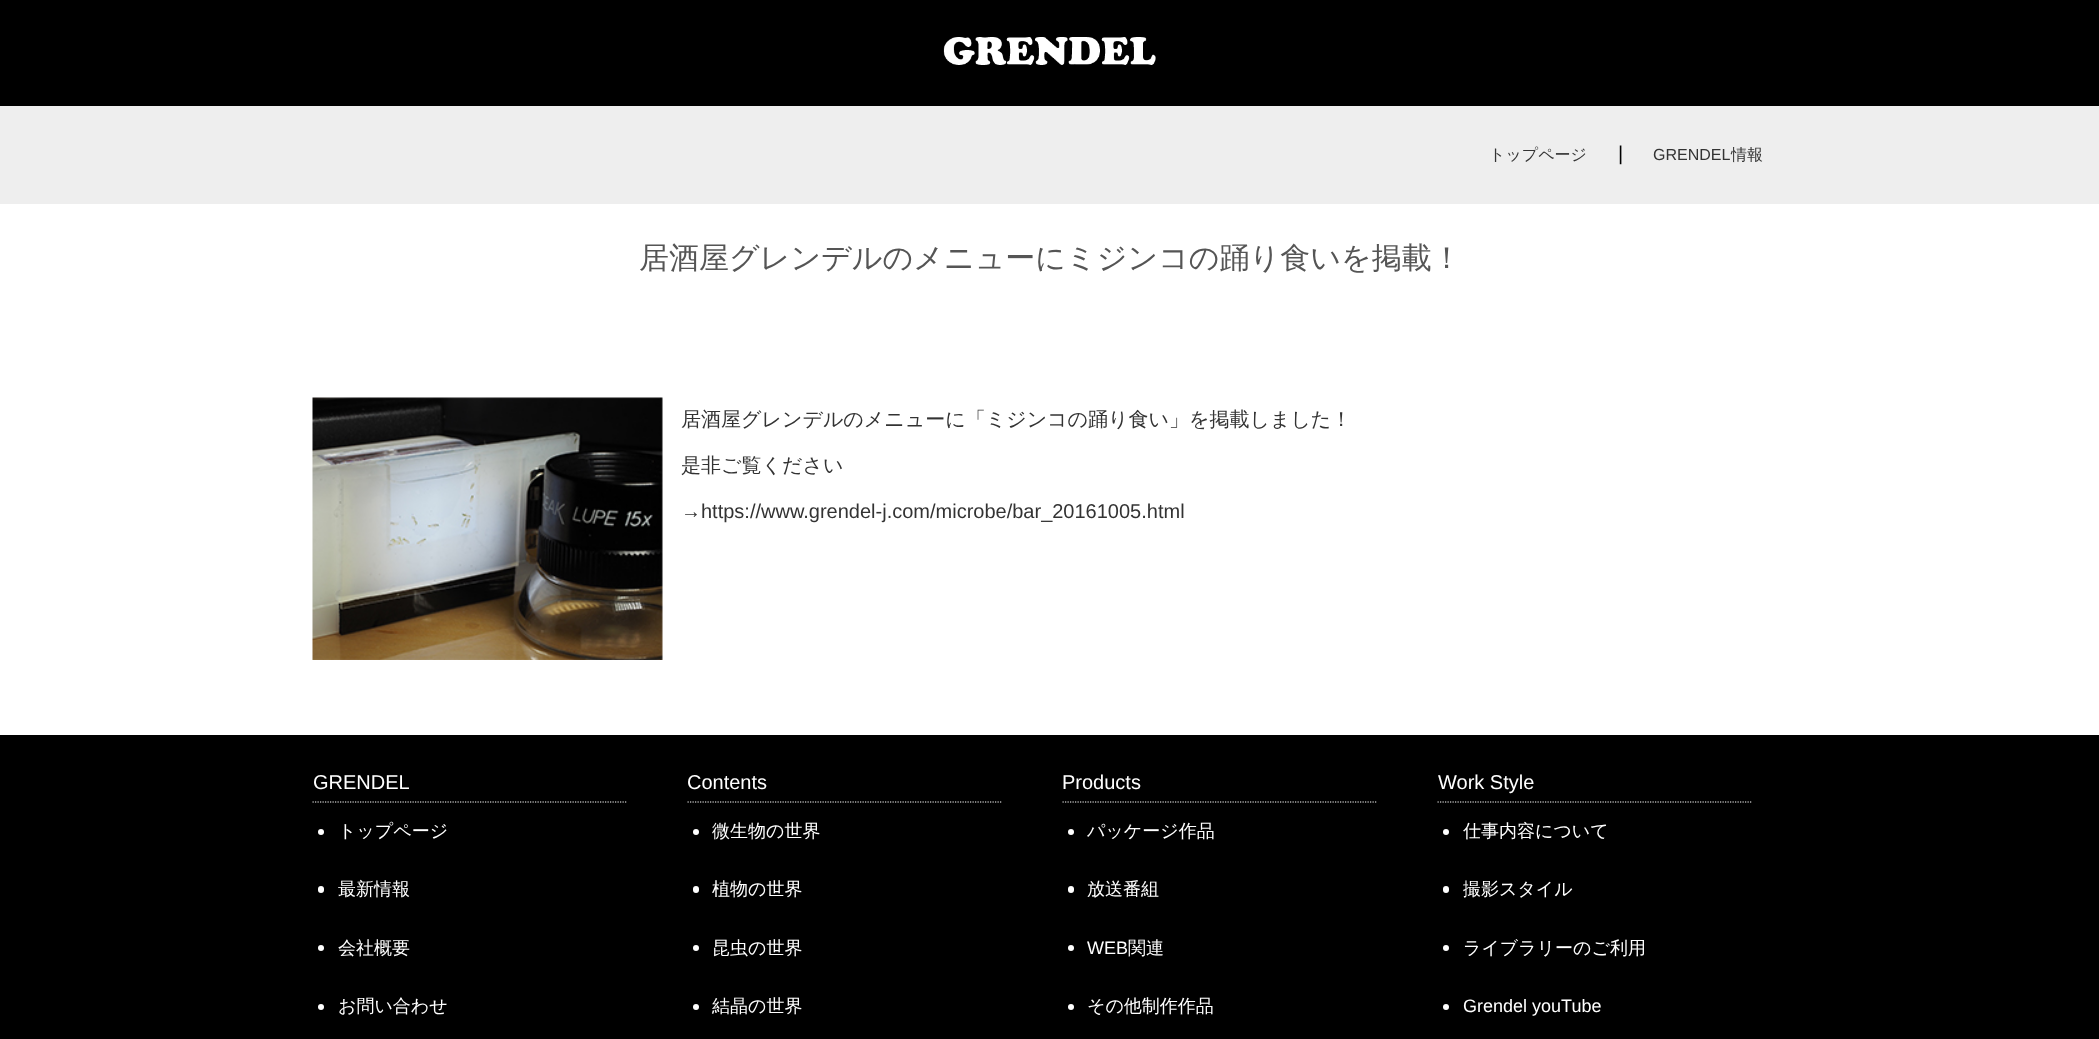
async function draw(canvas) {
  canvas.width = 2099;
  canvas.height = 1039;
  const ctx = canvas.getContext('2d');
  ctx.miterLimit = 4;
  ctx.fontKerning = 'normal';
  function label(s, x, y, font, color) {
    ctx.font = font;
    ctx.fillStyle = color;
    ctx.fillText(s, x, y);
  }
  function rect(x, y, w, h, color) {
    ctx.fillStyle = color;
    ctx.fillRect(x, y, w, h);
  }
  function roundedRect(x, y, w, h, r, color) {
    ctx.fillStyle = color;
    ctx.beginPath();
    ctx.roundRect(x, y, w, h, r);
    ctx.fill();
  }
  async function image(src, x, y, w, h) {
    const img = new Image();
    img.src = src;
    await img.decode();
    ctx.drawImage(img, x, y, w, h);
  }
  let path;

  rect(0, 0, 2099, 1039, '#fff');
  rect(0, 0, 2099, 106, '#000');
  await image('assets/img1.png', 943, 37, 213, 28);
  rect(0, 106, 2099, 98, '#eee');
  label('トップページ', 1489, 160, '500 16px WenQuanYi Zen Hei', '#333');
  label('|', 1618, 160, '20px Liberation Sans', '#000');
  label('GRENDEL', 1653, 160, '16px Liberation Sans', '#333');
  label('情報', 1731, 160, '500 16px WenQuanYi Zen Hei', '#333');
  label('居酒屋グレンデルのメニューにミジンコの踊り食いを掲載！', 639, 268, '500 30px WenQuanYi Zen Hei', '#555');
  await image('assets/img2.png', 312, 397, 351, 263);
  label('居酒屋グレンデルのメニューに「ミジンコの踊り食い」を掲載しました！', 681, 426, '500 20px WenQuanYi Zen Hei', '#333');
  label('是非ご覧ください', 681, 472, '500 20px WenQuanYi Zen Hei', '#333');
  label('→https://www.grendel-j.com/microbe/bar_20161005.html', 681, 518, '20px Liberation Sans', '#333');
  rect(0, 735, 2099, 304, '#000');
  path = new Path2D('M312.5 802H627.5');
  ctx.strokeStyle = '#fff';
  ctx.lineWidth = 1.2;
  ctx.setLineDash([1.25, 1.25]);
  ctx.stroke(path);
  label('GRENDEL', 313, 789, '20px Liberation Sans', '#fff');
  ctx.beginPath();
  ctx.arc(321, 832, 3, 0, 2 * Math.PI);
  ctx.fill();
  label('トップページ', 338, 837, '500 18px WenQuanYi Zen Hei', '#fff');
  roundedRect(318, 886, 6, 7, 3, '#fff');
  label('最新情報', 338, 895, '500 18px WenQuanYi Zen Hei', '#fff');
  ctx.beginPath();
  ctx.arc(321, 948, 3, 0, 2 * Math.PI);
  ctx.fill();
  label('会社概要', 338, 954, '500 18px WenQuanYi Zen Hei', '#fff');
  ctx.beginPath();
  ctx.arc(321, 1007, 3, 0, 2 * Math.PI);
  ctx.fill();
  label('お問い合わせ', 338, 1012, '500 18px WenQuanYi Zen Hei', '#fff');
  path = new Path2D('M687.5 802H1002.5');
  ctx.stroke(path);
  label('Contents', 687, 789, '20px Liberation Sans', '#fff');
  ctx.beginPath();
  ctx.arc(696, 832, 3, 0, 2 * Math.PI);
  ctx.fill();
  label('微生物の世界', 712, 837, '500 18px WenQuanYi Zen Hei', '#fff');
  roundedRect(693, 886, 6, 7, 3, '#fff');
  label('植物の世界', 712, 895, '500 18px WenQuanYi Zen Hei', '#fff');
  ctx.beginPath();
  ctx.arc(696, 948, 3, 0, 2 * Math.PI);
  ctx.fill();
  label('昆虫の世界', 712, 954, '500 18px WenQuanYi Zen Hei', '#fff');
  ctx.beginPath();
  ctx.arc(696, 1007, 3, 0, 2 * Math.PI);
  ctx.fill();
  label('結晶の世界', 712, 1012, '500 18px WenQuanYi Zen Hei', '#fff');
  path = new Path2D('M1062.5 802H1377.5');
  ctx.stroke(path);
  label('Products', 1062, 789, '20px Liberation Sans', '#fff');
  ctx.beginPath();
  ctx.arc(1071, 832, 3, 0, 2 * Math.PI);
  ctx.fill();
  label('パッケージ作品', 1087, 837, '500 18px WenQuanYi Zen Hei', '#fff');
  roundedRect(1068, 886, 6, 7, 3, '#fff');
  label('放送番組', 1087, 895, '500 18px WenQuanYi Zen Hei', '#fff');
  ctx.beginPath();
  ctx.arc(1071, 948, 3, 0, 2 * Math.PI);
  ctx.fill();
  label('WEB', 1087, 954, '18px Liberation Sans', '#fff');
  label('関連', 1128, 954, '500 18px WenQuanYi Zen Hei', '#fff');
  ctx.beginPath();
  ctx.arc(1071, 1007, 3, 0, 2 * Math.PI);
  ctx.fill();
  label('その他制作作品', 1087, 1012, '500 18px WenQuanYi Zen Hei', '#fff');
  path = new Path2D('M1437.5 802H1752.5');
  ctx.stroke(path);
  label('Work Style', 1438, 789, '20px Liberation Sans', '#fff');
  ctx.beginPath();
  ctx.arc(1446, 832, 3, 0, 2 * Math.PI);
  ctx.fill();
  label('仕事内容について', 1463, 837, '500 18px WenQuanYi Zen Hei', '#fff');
  roundedRect(1443, 886, 6, 7, 3, '#fff');
  label('撮影スタイル', 1463, 895, '500 18px WenQuanYi Zen Hei', '#fff');
  ctx.beginPath();
  ctx.arc(1446, 948, 3, 0, 2 * Math.PI);
  ctx.fill();
  label('ライブラリーのご利用', 1463, 954, '500 18px WenQuanYi Zen Hei', '#fff');
  ctx.beginPath();
  ctx.arc(1446, 1007, 3, 0, 2 * Math.PI);
  ctx.fill();
  label('Grendel youTube', 1463, 1012, '18px Liberation Sans', '#fff');
}

draw(document.querySelector('canvas'));
